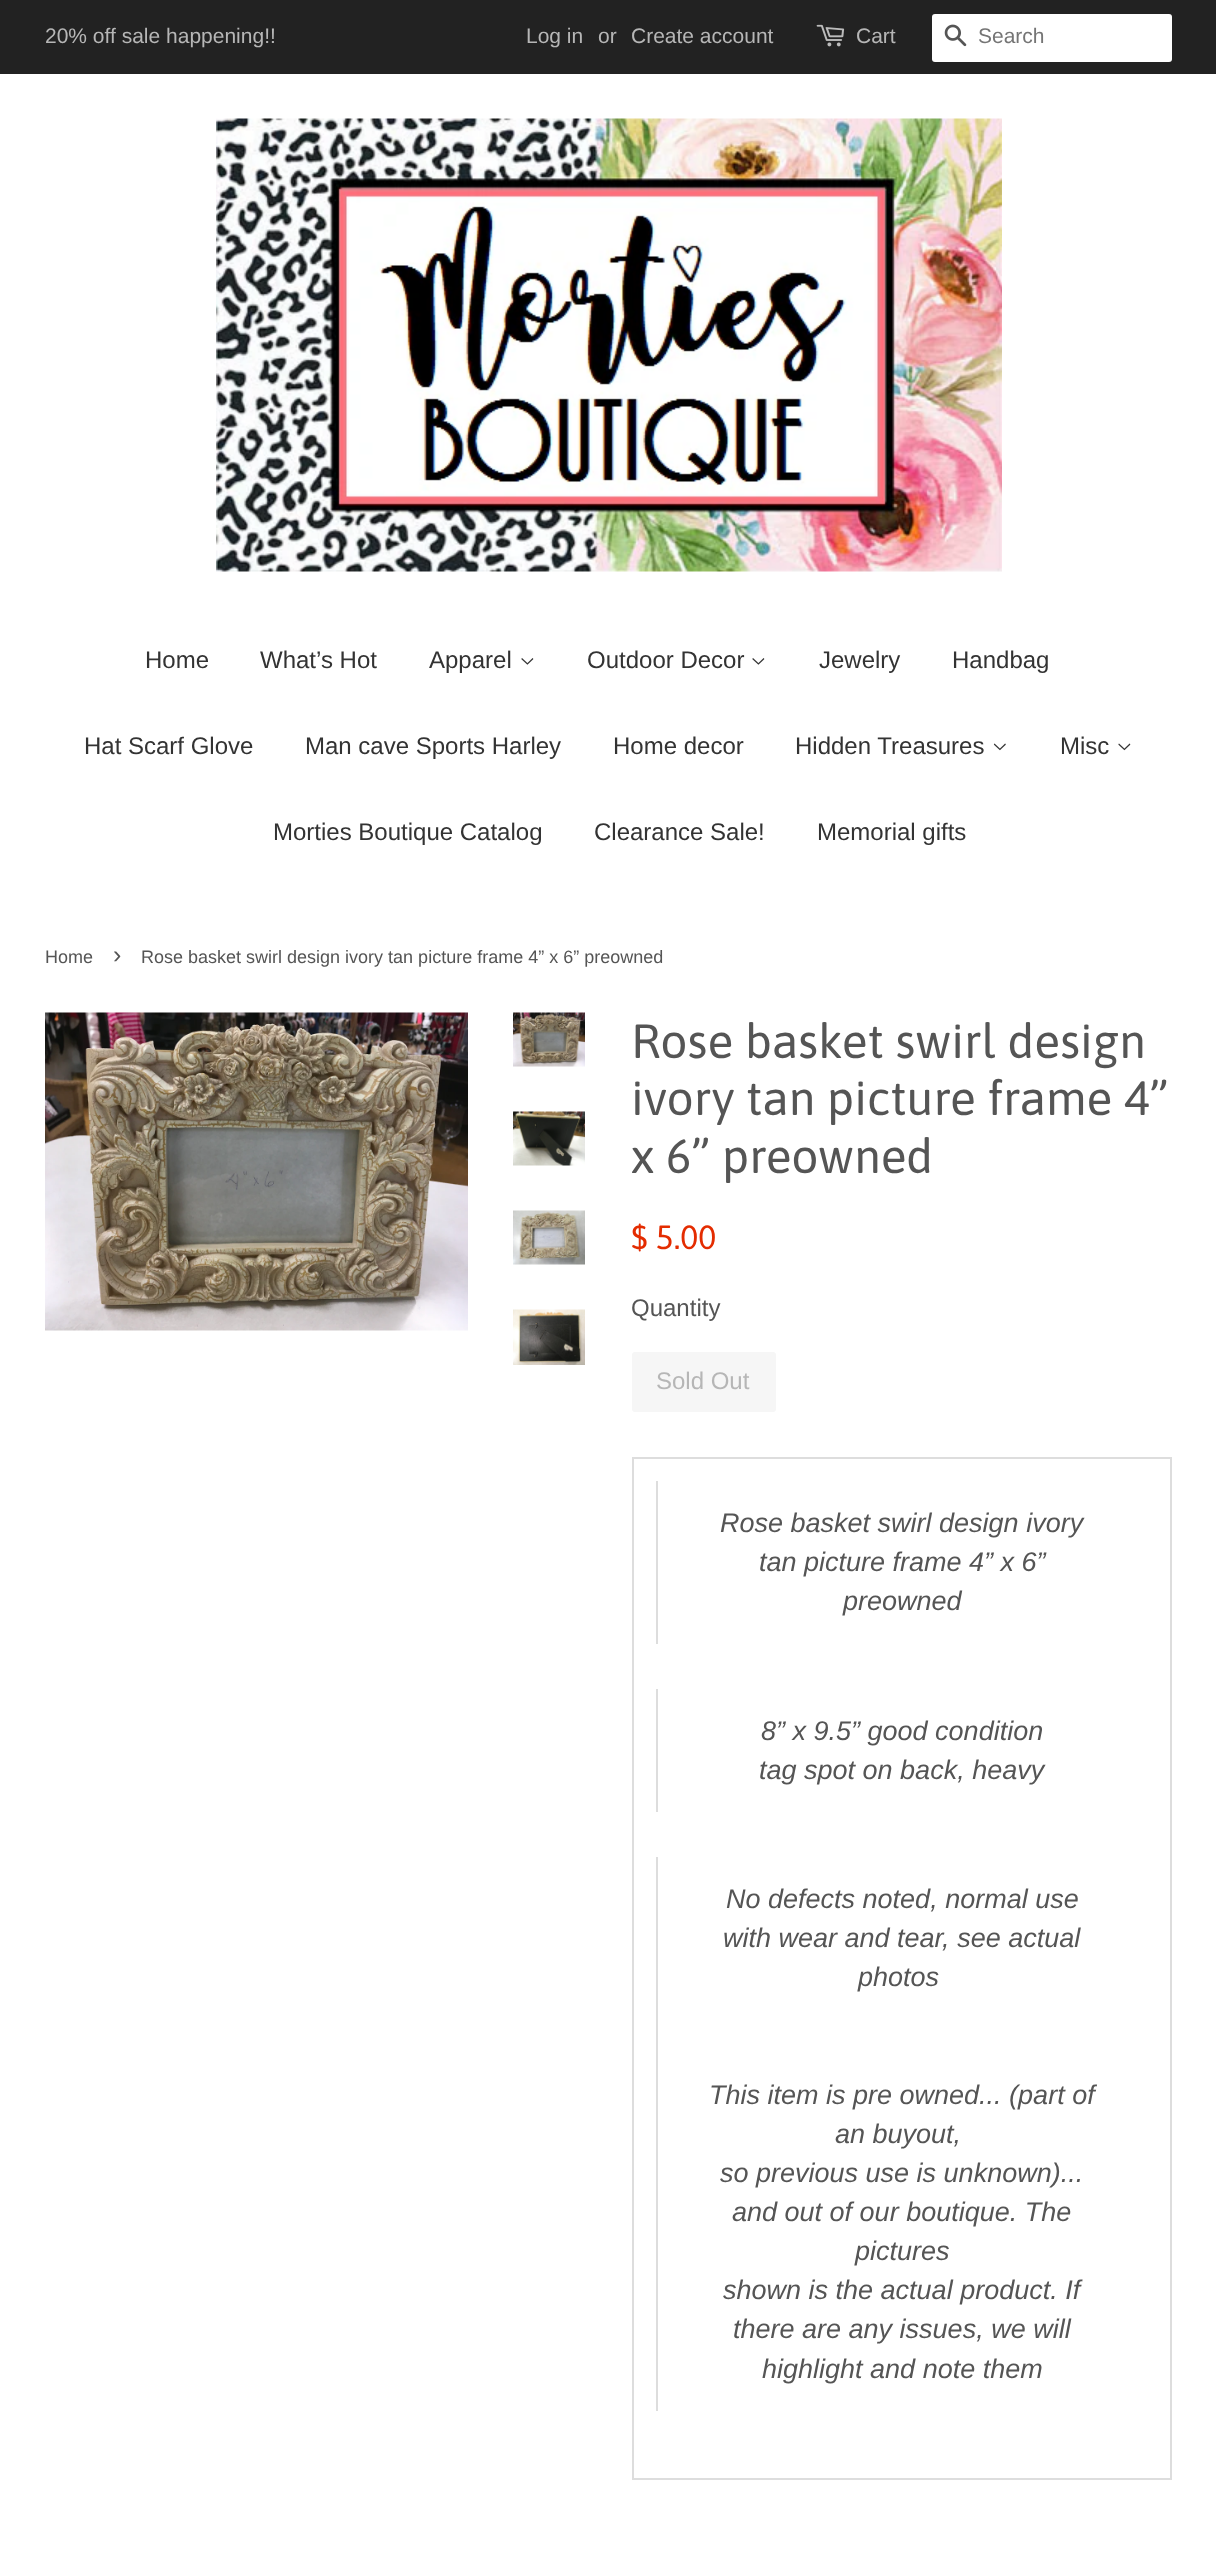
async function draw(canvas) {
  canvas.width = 1216;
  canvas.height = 2550;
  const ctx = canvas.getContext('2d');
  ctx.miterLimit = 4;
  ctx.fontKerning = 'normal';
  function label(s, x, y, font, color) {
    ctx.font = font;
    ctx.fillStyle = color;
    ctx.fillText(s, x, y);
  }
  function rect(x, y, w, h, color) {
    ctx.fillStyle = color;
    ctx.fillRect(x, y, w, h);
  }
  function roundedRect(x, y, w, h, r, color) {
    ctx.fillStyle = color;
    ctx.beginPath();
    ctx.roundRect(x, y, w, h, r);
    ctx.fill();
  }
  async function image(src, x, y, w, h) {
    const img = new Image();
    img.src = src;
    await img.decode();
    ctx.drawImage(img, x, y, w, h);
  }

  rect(0, 0, 1216, 2550, '#fff');
  rect(0, 0, 1216, 74, '#222');
  label('20% off sale happening!!', 45, 43, '21px Liberation Sans', '#b6b6b6');
  label('Log in', 526, 43, '21px Liberation Sans', '#b6b6b6');
  label('or', 598, 43, '21px Liberation Sans', '#b6b6b6');
  label('Create account', 631, 43, '21px Liberation Sans', '#b6b6b6');
  await image('assets/img1.png', 816, 24, 29, 23);
  label('Cart', 856, 43, '21px Liberation Sans', '#b6b6b6');
  roundedRect(932, 14, 240, 48, 3, '#fff');
  await image('assets/img2.png', 944, 24, 23, 23);
  label('Search', 978, 43, '21px Liberation Sans', '#757575');
  await image('assets/img3.png', 216, 118, 786, 454);
  label('Home', 145, 668, '24px Liberation Sans', '#333');
  label('What’s Hot', 260, 668, '24px Liberation Sans', '#333');
  label('Apparel', 429, 668, '24px Liberation Sans', '#333');
  await image('assets/img4.png', 521, 658, 13, 7);
  label('Outdoor Decor', 587, 668, '24px Liberation Sans', '#333');
  await image('assets/img4.png', 752, 658, 13, 7);
  label('Jewelry', 819, 668, '24px Liberation Sans', '#333');
  label('Handbag', 952, 668, '24px Liberation Sans', '#333');
  label('Hat Scarf Glove', 84, 754, '24px Liberation Sans', '#333');
  label('Man cave Sports Harley', 305, 754, '24px Liberation Sans', '#333');
  label('Home decor', 613, 754, '24px Liberation Sans', '#333');
  label('Hidden Treasures', 795, 754, '24px Liberation Sans', '#333');
  await image('assets/img5.png', 993, 743, 13, 8);
  label('Misc', 1060, 754, '24px Liberation Sans', '#333');
  await image('assets/img6.png', 1118, 743, 13, 8);
  label('Morties Boutique Catalog', 273, 840, '24px Liberation Sans', '#333');
  label('Clearance Sale!', 594, 840, '24px Liberation Sans', '#333');
  label('Memorial gifts', 817, 840, '24px Liberation Sans', '#333');
  label('Home', 45, 963, '18px Liberation Sans', '#555');
  label('›', 113, 963, '25px Liberation Sans', '#555');
  label('Rose basket swirl design ivory tan picture frame 4” x 6” preowned', 141, 963, '18px Liberation Sans', '#555');
  await image('assets/img7.png', 45, 1012, 423, 319);
  await image('assets/img8.png', 513, 1012, 72, 55);
  await image('assets/img9.png', 513, 1111, 72, 55);
  await image('assets/img10.png', 513, 1210, 72, 55);
  await image('assets/img11.png', 513, 1309, 72, 56);
  label('Rose basket swirl design', 631, 1058, '48px Asap', '#555');
  label('ivory tan picture frame 4”', 631, 1115, '48px Asap', '#555');
  label('x 6” preowned', 631, 1173, '48px Asap', '#555');
  label('$ 5.00', 631, 1249, '33.5px Asap', '#e42c00');
  label('Quantity', 631, 1316, '24px Liberation Sans', '#555');
  roundedRect(632, 1352, 144, 60, 3, '#f6f6f6');
  label('Sold Out', 656, 1389, '24px Liberation Sans', '#b6b6b6');
  rect(632, 1457, 540, 2, '#ddd');
  rect(1170, 1457, 2, 1023, '#ddd');
  rect(632, 2478, 540, 2, '#ddd');
  rect(632, 1457, 2, 1023, '#ddd');
  rect(656, 1481, 2, 163, '#ddd');
  label('Rose basket swirl design ivory', 720, 1532, 'italic 27px Liberation Sans', '#555');
  label('tan picture frame 4” x 6”', 759, 1571, 'italic 27px Liberation Sans', '#555');
  label('preowned', 843, 1610, 'italic 27px Liberation Sans', '#555');
  rect(656, 1689, 2, 123, '#ddd');
  label('8” x 9.5” good condition', 761, 1740, 'italic 27px Liberation Sans', '#555');
  label('tag spot on back, heavy', 759, 1779, 'italic 27px Liberation Sans', '#555');
  rect(656, 1857, 2, 554, '#ddd');
  label('No defects noted, normal use', 726, 1908, 'italic 27px Liberation Sans', '#555');
  label('with wear and tear, see actual', 723, 1947, 'italic 27px Liberation Sans', '#555');
  label('photos', 858, 1986, 'italic 27px Liberation Sans', '#555');
  label('This item is pre owned... (part of', 709, 2104, 'italic 27px Liberation Sans', '#555');
  label('an buyout,', 835, 2143, 'italic 27px Liberation Sans', '#555');
  label('so previous use is unknown)...', 720, 2182, 'italic 27px Liberation Sans', '#555');
  label('and out of our boutique. The', 732, 2221, 'italic 27px Liberation Sans', '#555');
  label('pictures', 855, 2260, 'italic 27px Liberation Sans', '#555');
  label('shown is the actual product. If', 723, 2299, 'italic 27px Liberation Sans', '#555');
  label('there are any issues, we will', 733, 2338, 'italic 27px Liberation Sans', '#555');
  label('highlight and note them', 762, 2378, 'italic 27px Liberation Sans', '#555');
}

draw(document.querySelector('canvas'));
